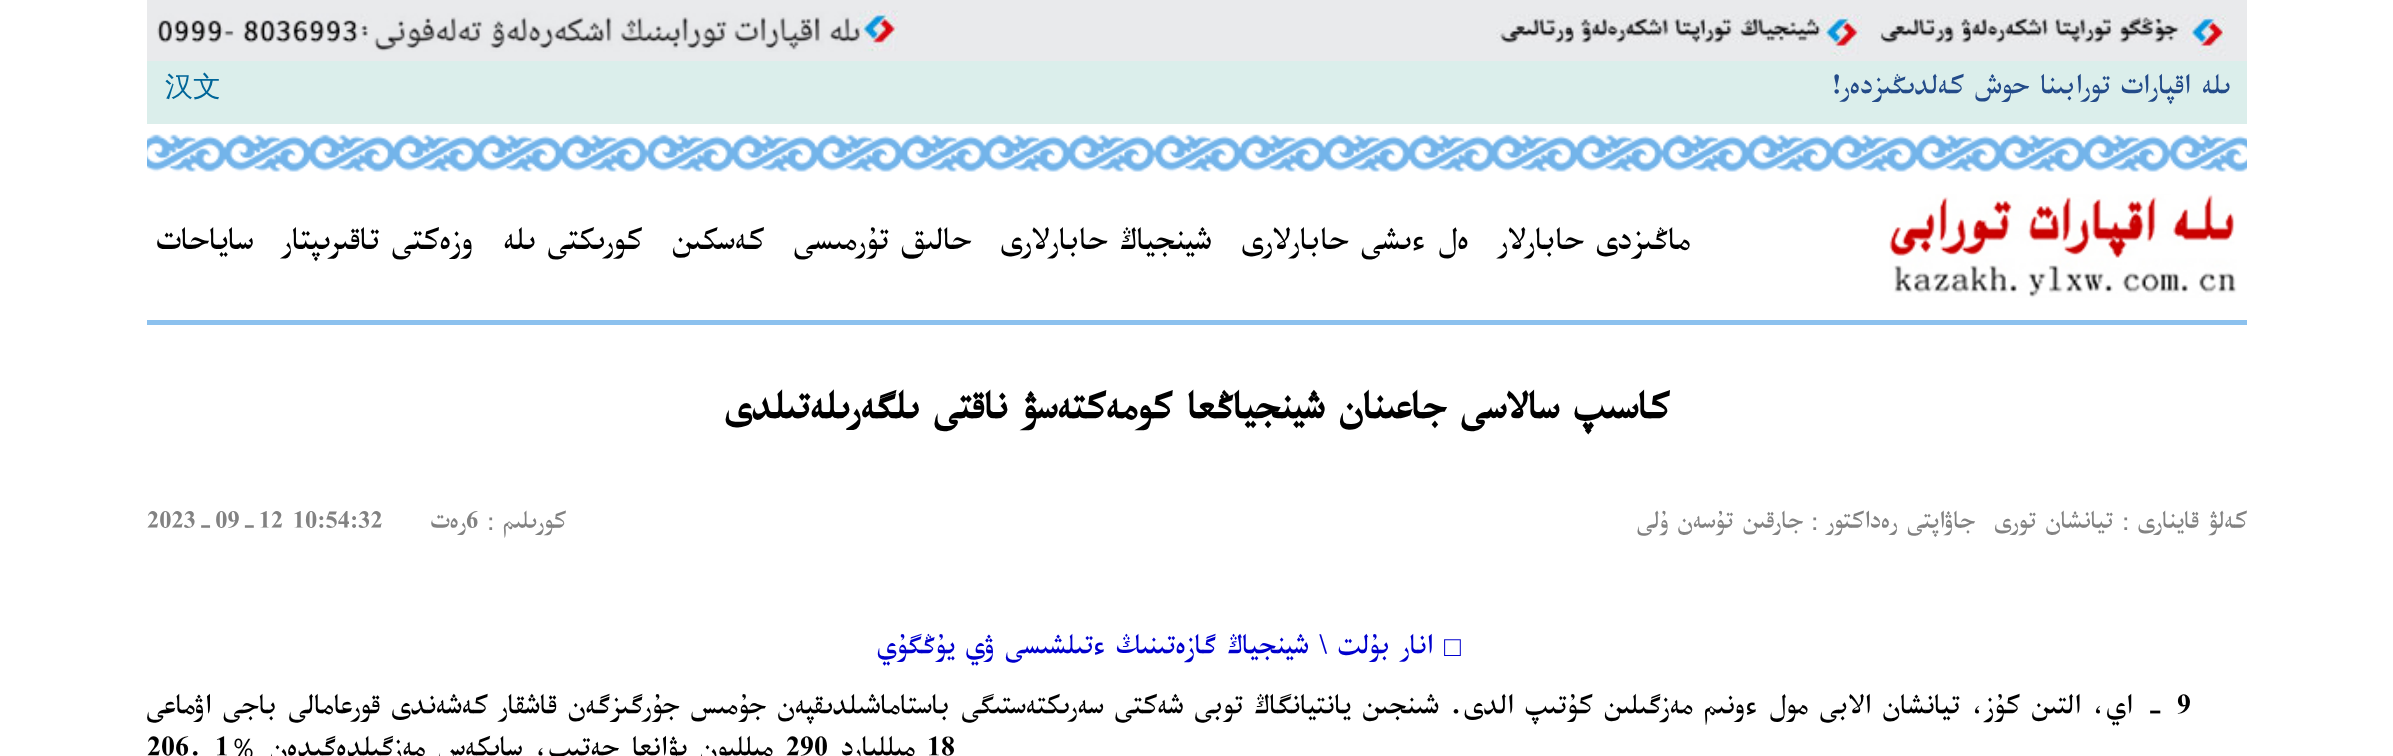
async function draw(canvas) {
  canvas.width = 2393;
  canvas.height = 756;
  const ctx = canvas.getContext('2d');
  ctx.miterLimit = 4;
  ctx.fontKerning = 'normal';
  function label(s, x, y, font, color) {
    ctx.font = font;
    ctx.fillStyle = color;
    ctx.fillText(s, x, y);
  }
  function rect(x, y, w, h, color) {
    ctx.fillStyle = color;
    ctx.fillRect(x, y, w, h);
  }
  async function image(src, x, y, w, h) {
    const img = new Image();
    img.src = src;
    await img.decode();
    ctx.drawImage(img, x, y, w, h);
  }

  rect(0, 0, 2393, 756, '#fff');
  rect(147, 0, 2100, 61, '#e9eaec');
  await image('assets/img1.png', 1878, 14, 348, 42);
  await image('assets/img2.png', 1496, 14, 366, 42);
  await image('assets/img3.png', 157, 10, 741, 42);
  rect(147, 61, 2100, 63, '#dbeeeb');
  ctx.direction = 'rtl';
  label('ىلە اقپارات تورابىنا حوش كەلدىڭىزدەر!', 2230, 96, '28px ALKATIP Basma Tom', '#234b89');
  ctx.direction = 'ltr';
  label('汉文', 165, 96, '500 28px WenQuanYi Zen Hei', '#069');
  await image('assets/img4.png', 147, 134, 2100, 38);
  rect(147, 320, 2100, 5, '#8cc1ee');
  await image('assets/img5.png', 1889, 194, 348, 104);
  ctx.direction = 'rtl';
  label('ماڭىزدى حابارلار', 1690, 252, '31.5px ALKATIP Basma Tom', '#000');
  label('ەل', 1469, 252, '31.5px ALKATIP Basma Tom', '#000');
  label('ء', 1426, 252, '31.5px DejaVu Sans', '#000');
  label('ىشى حابارلارى', 1411, 252, '31.5px ALKATIP Basma Tom', '#000');
  label('شينجياڭ حابارلارى', 1211, 252, '31.5px ALKATIP Basma Tom', '#000');
  label('حالىق تۇرمىسى', 971, 252, '31.5px ALKATIP Basma Tom', '#000');
  label('كەسكىن', 764, 252, '31.5px ALKATIP Basma Tom', '#000');
  label('كورىكتى ىلە', 642, 252, '31.5px ALKATIP Basma Tom', '#000');
  label('وزەكتى تاقىرىپتار', 473, 252, '31.5px ALKATIP Basma Tom', '#000');
  label('ساياحات', 253, 252, '31.5px ALKATIP Basma Tom', '#000');
  label('كاسىپ سالاسى جاعىنان شينجياڭعا كومەكتەسۋ ناقتى ىلگەرىلەتىلدى', 1669, 422, 'bold 38.5px ALKATIP Basma Tom', '#000');
  label('كەلۋ قاينارى', 2247, 530, '24.5px ALKATIP Basma Tom', '#828282');
  label('：', 2138, 530, '500 24.5px WenQuanYi Zen Hei', '#828282');
  label('تيانشان تورى', 2113, 530, '24.5px ALKATIP Basma Tom', '#828282');
  label('جاۋاپتى رەداكتور', 1975, 530, '24.5px ALKATIP Basma Tom', '#828282');
  label('：', 1827, 530, '500 24.5px WenQuanYi Zen Hei', '#828282');
  label('جارقىن تۇسەن ۇلى', 1803, 530, '24.5px ALKATIP Basma Tom', '#828282');
  label('كورىلىم', 566, 530, '24.5px ALKATIP Basma Tom', '#828282');
  label('：', 503, 530, '500 24.5px WenQuanYi Zen Hei', '#828282');
  ctx.direction = 'ltr';
  label('6', 466, 530, '24.5px ALKATIP Basma Tom', '#828282');
  ctx.direction = 'rtl';
  label('رەت', 466, 530, '24.5px ALKATIP Basma Tom', '#828282');
  ctx.direction = 'ltr';
  label('2023-09-12 10:54:32', 147, 530, '24.5px ALKATIP Basma Tom', '#828282');
  ctx.direction = 'rtl';
  label('□', 1461, 656, '28px Liberation Serif', '#0000cd');
  label('انار بۇلت \\ شينجياڭ گازەتىنىڭ', 1433, 656, '28px ALKATIP Basma Tom', '#0000cd');
  label('ء', 1106, 656, '28px DejaVu Sans', '#0000cd');
  label('تىلشىسى ۋي يۇڭگۇي', 1093, 656, '28px ALKATIP Basma Tom', '#0000cd');
  ctx.direction = 'ltr';
  label('9', 2177, 716, '28px ALKATIP Basma Tom', '#000');
  ctx.wordSpacing = '0.5px';
  ctx.direction = 'rtl';
  label('- اي، التىن كۇز، تيانشان الابى مول', 2166, 716, '28px ALKATIP Basma Tom', '#000');
  ctx.wordSpacing = '0px';
  label('ء', 1758, 716, '28px DejaVu Sans', '#000');
  ctx.wordSpacing = '0.5px';
  label('ونىم مەزگىلىن كۇتىپ الدى. شىنجىن يانتيانگاڭ توبى شەكتى سەرىكتەستىگى باستاماشىلدىقپەن جۇمىس جۇرگىزگەن قاشقار كەشەندى قورعامالى باجى اۋماعى', 1745, 716, '28px ALKATIP Basma Tom', '#000');
  ctx.wordSpacing = '0px';
  ctx.direction = 'ltr';
  label('18', 927, 758, '28px ALKATIP Basma Tom', '#000');
  ctx.direction = 'rtl';
  label('ميلليارد', 915, 758, '28px ALKATIP Basma Tom', '#000');
  ctx.direction = 'ltr';
  label('290', 786, 758, '28px ALKATIP Basma Tom', '#000');
  ctx.wordSpacing = '2px';
  ctx.direction = 'rtl';
  label('ميلليون يۋانعا جەتىپ، سايكەس مەزگىلدەگىدەن', 773, 758, '28px ALKATIP Basma Tom', '#000');
  ctx.wordSpacing = '0px';
  label('％', 257, 758, '500 28px WenQuanYi Zen Hei', '#000');
  ctx.direction = 'ltr';
  label('1', 215, 758, '28px ALKATIP Basma Tom', '#000');
  label('206.', 147, 758, '28px ALKATIP Basma Tom', '#000');
}

draw(document.querySelector('canvas'));
